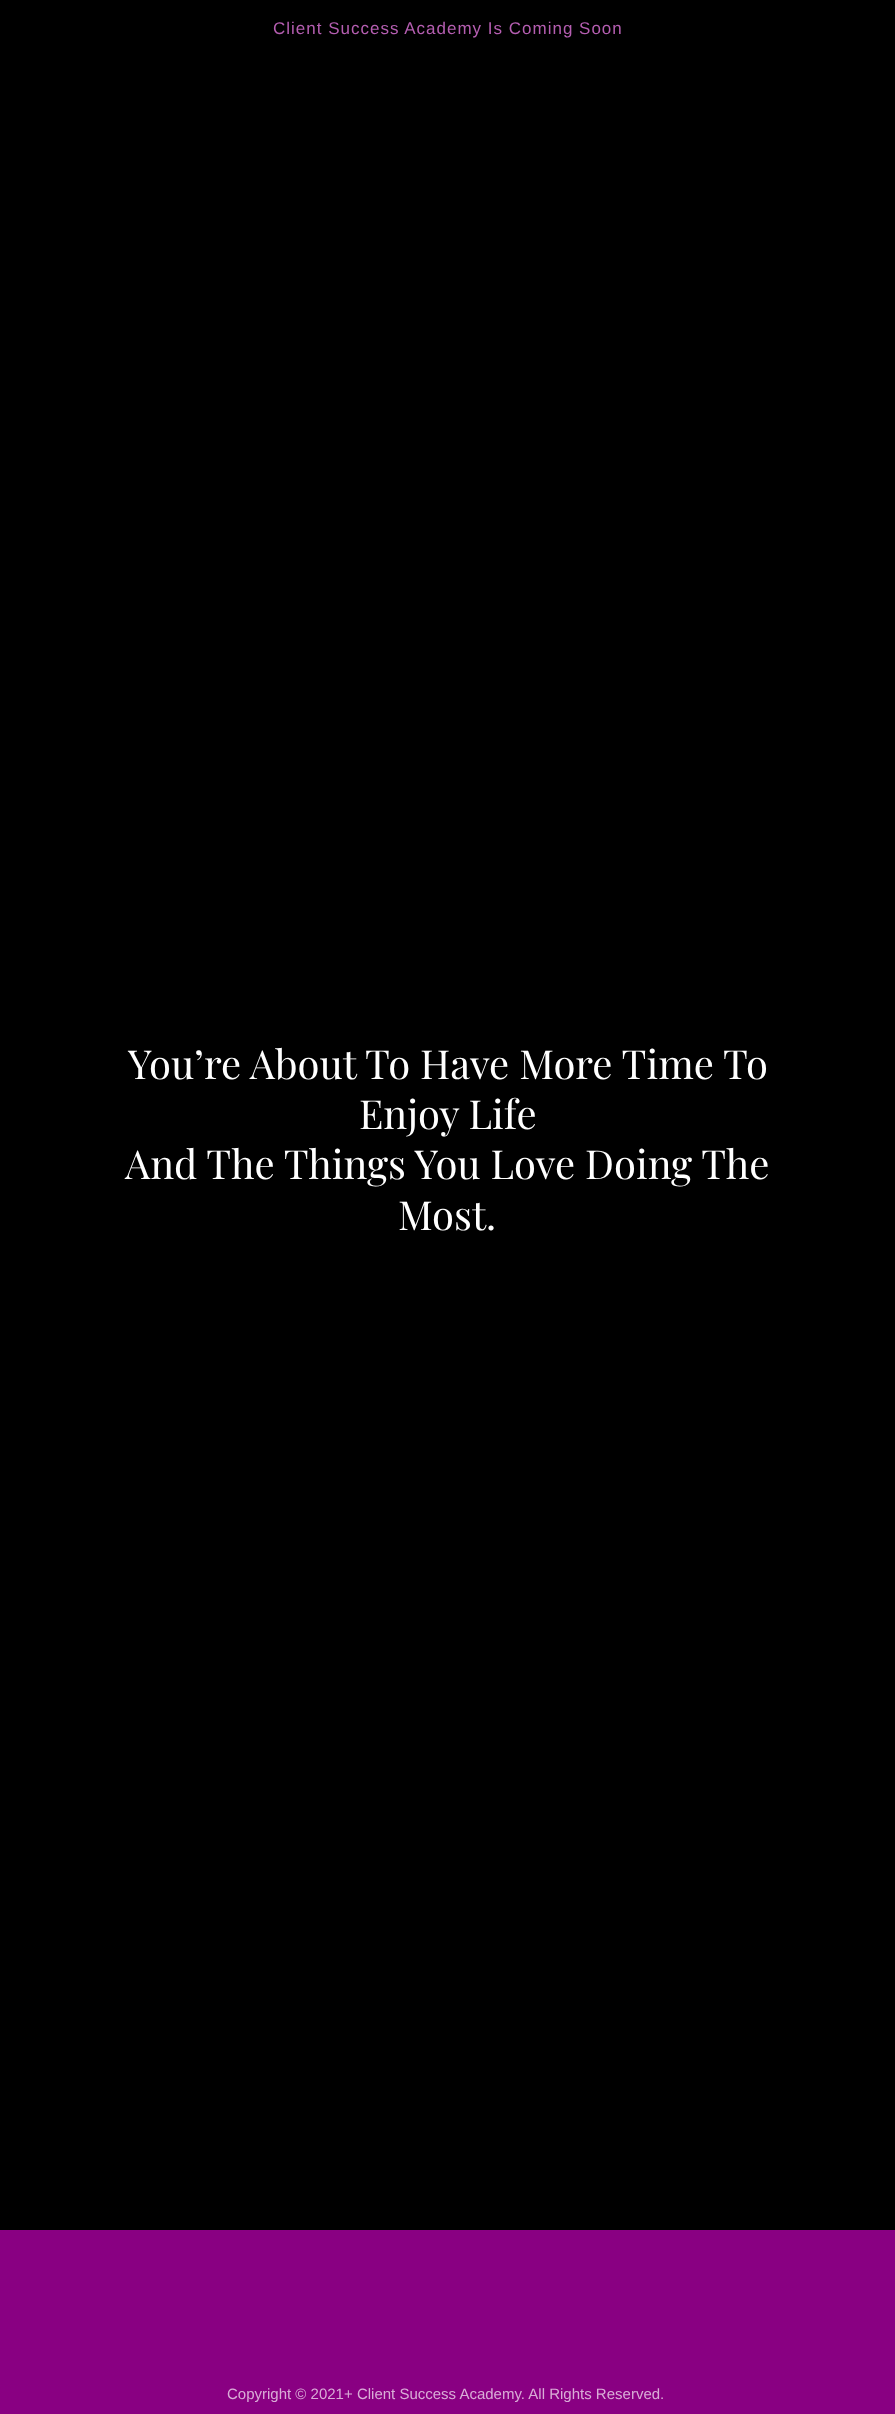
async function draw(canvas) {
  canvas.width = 895;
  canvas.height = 2414;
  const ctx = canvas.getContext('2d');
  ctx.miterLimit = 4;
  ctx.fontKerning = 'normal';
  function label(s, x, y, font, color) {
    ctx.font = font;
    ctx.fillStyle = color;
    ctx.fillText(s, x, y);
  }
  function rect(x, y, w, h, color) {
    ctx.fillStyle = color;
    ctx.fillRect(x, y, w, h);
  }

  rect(0, 0, 895, 2414, '#000');
  ctx.letterSpacing = '1px';
  label('Client Success Academy Is Coming Soon', 273, 34, '17px Liberation Sans', '#b55eb1');
  ctx.letterSpacing = '0px';
  label('You’re About To Have More Time To', 128, 1079, '40px Playfair Display', '#fff');
  label('Enjoy Life', 359, 1129, '40px Playfair Display', '#fff');
  label('And The Things You Love Doing The', 125, 1179, '40px Playfair Display', '#fff');
  label('Most.', 398, 1230, '40px Playfair Display', '#fff');
  rect(0, 2230, 895, 184, '#890082');
  label('Copyright © 2021+ Client Success Academy. All Rights Reserved.', 227, 2399, '15px Liberation Sans', '#d9add7');
}

draw(document.querySelector('canvas'));
